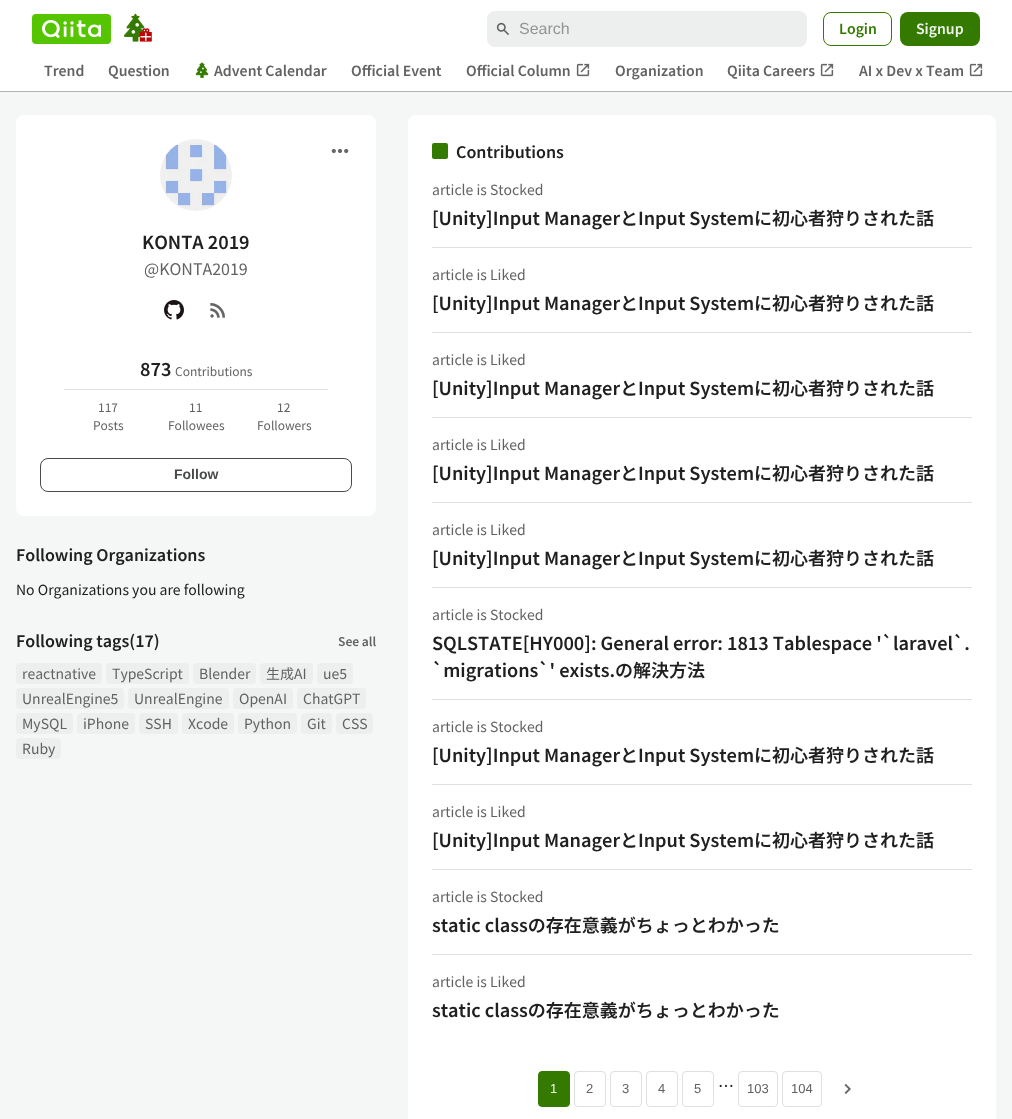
async function draw(canvas) {
  canvas.width = 1012;
  canvas.height = 1119;
  const ctx = canvas.getContext('2d');
  ctx.miterLimit = 4;
  ctx.fontKerning = 'none';
  function label(s, x, y, font, color) {
    ctx.font = font;
    ctx.fillStyle = color;
    ctx.fillText(s, x, y);
  }
  function rect(x, y, w, h, color) {
    ctx.fillStyle = color;
    ctx.fillRect(x, y, w, h);
  }
  function roundedRect(x, y, w, h, r, color) {
    ctx.fillStyle = color;
    ctx.beginPath();
    ctx.roundRect(x, y, w, h, r);
    ctx.fill();
  }
  async function image(src, x, y, w, h) {
    const img = new Image();
    img.src = src;
    await img.decode();
    ctx.drawImage(img, x, y, w, h);
  }

  rect(0, 0, 1012, 1119, '#f5f6f6');
  ctx.strokeStyle = '#e1e2e2';
  ctx.strokeRect(-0.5, -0.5, 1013, 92);
  ctx.fillStyle = '#1e212140';
  ctx.filter = 'blur(0.5px)';
  ctx.beginPath();
  ctx.rect(0, 1, 1012, 91);
  ctx.fill();
  ctx.filter = 'none';
  rect(0, 0, 1012, 91, '#fff');
  roundedRect(32, 14, 79, 30, 4, '#55c500');
  await image('assets/img1.png', 42, 20, 59, 18);
  await image('assets/img2.png', 124, 13, 28, 29);
  roundedRect(487, 11, 320, 36, 8, '#edeeee');
  await image('assets/img3.png', 496, 22, 13, 13);
  label('Search', 519, 34, '16px Liberation Sans', '#939494');
  ctx.beginPath();
  ctx.roundRect(823.5, 12.5, 68, 33, 7.5);
  ctx.strokeStyle = '#357a00';
  ctx.stroke();
  label('Login', 839, 34, '600 14px Noto Sans JP', '#357a00');
  roundedRect(900, 12, 80, 34, 8, '#357a00');
  label('Signup', 916, 34, '600 14px Noto Sans JP', '#eff4eb');
  label('Trend', 44, 76, '600 14px Noto Sans JP', '#626262');
  label('Question', 108, 76, '600 14px Noto Sans JP', '#626262');
  await image('assets/img4.png', 195, 62, 14, 16);
  label('Advent Calendar', 214, 76, '600 14px Noto Sans JP', '#626262');
  label('Official Event', 351, 76, '600 14px Noto Sans JP', '#626262');
  label('Official Column', 466, 76, '600 14px Noto Sans JP', '#626262');
  await image('assets/img5.png', 576, 63, 14, 14);
  label('Organization', 615, 76, '600 14px Noto Sans JP', '#626262');
  label('Qiita Careers', 727, 76, '600 14px Noto Sans JP', '#626262');
  await image('assets/img5.png', 820, 63, 14, 14);
  label('AI x Dev x Team', 859, 76, '600 14px Noto Sans JP', '#626262');
  await image('assets/img5.png', 969, 63, 14, 14);
  roundedRect(16, 115, 360, 401, 8, '#fff');
  await image('assets/img6.png', 331, 149, 18, 4);
  await image('assets/img7.png', 160, 139, 72, 72);
  label('KONTA 2019', 142, 249, '600 18px Noto Sans JP', '#202020');
  label('@KONTA2019', 144, 275, '16px Noto Sans JP', '#626262');
  await image('assets/img8.png', 164, 300, 20, 20);
  await image('assets/img9.png', 210, 303, 15, 15);
  label('873', 140, 376, '600 18px Noto Sans JP', '#202020');
  label('Contributions', 175, 376, '12px Noto Sans JP', '#626262');
  rect(64, 389, 264, 1, '#e0e0e0');
  label('117', 98, 412, '12px Noto Sans JP', '#626262');
  label('Posts', 93, 430, '12px Noto Sans JP', '#626262');
  label('11', 189, 412, '12px Noto Sans JP', '#626262');
  label('Followees', 168, 430, '12px Noto Sans JP', '#626262');
  label('12', 277, 412, '12px Noto Sans JP', '#626262');
  label('Followers', 257, 430, '12px Noto Sans JP', '#626262');
  ctx.beginPath();
  ctx.roundRect(40.5, 458.5, 311, 33, 7.5);
  ctx.strokeStyle = '#494b4b';
  ctx.stroke();
  label('Follow', 174, 479, 'bold 14px Liberation Sans', '#494b4b');
  label('Following Organizations', 16, 561, '600 16px Noto Sans JP', '#202020');
  label('No Organizations you are following', 16, 595, '14px Noto Sans JP', '#202020');
  label('Following tags(17)', 16, 647, '600 16px Noto Sans JP', '#202020');
  label('See all', 338, 646, '600 12px Noto Sans JP', '#626262');
  roundedRect(16, 663, 86, 21, 4, '#edeeee');
  label('reactnative', 22, 679, '14px Noto Sans JP', '#626262');
  roundedRect(106, 663, 83, 21, 4, '#edeeee');
  label('TypeScript', 112, 679, '14px Noto Sans JP', '#626262');
  roundedRect(193, 663, 63, 21, 4, '#edeeee');
  label('Blender', 199, 679, '14px Noto Sans JP', '#626262');
  roundedRect(260, 663, 53, 21, 4, '#edeeee');
  label('生成AI', 266, 679, '14px Noto Sans JP', '#626262');
  roundedRect(317, 663, 36, 21, 4, '#edeeee');
  label('ue5', 323, 679, '14px Noto Sans JP', '#626262');
  roundedRect(16, 688, 108, 21, 4, '#edeeee');
  label('UnrealEngine5', 22, 704, '14px Noto Sans JP', '#626262');
  roundedRect(128, 688, 101, 21, 4, '#edeeee');
  label('UnrealEngine', 134, 704, '14px Noto Sans JP', '#626262');
  roundedRect(233, 688, 60, 21, 4, '#edeeee');
  label('OpenAI', 239, 704, '14px Noto Sans JP', '#626262');
  roundedRect(297, 688, 69, 21, 4, '#edeeee');
  label('ChatGPT', 303, 704, '14px Noto Sans JP', '#626262');
  roundedRect(16, 713, 57, 21, 4, '#edeeee');
  label('MySQL', 22, 729, '14px Noto Sans JP', '#626262');
  roundedRect(77, 713, 58, 21, 4, '#edeeee');
  label('iPhone', 83, 729, '14px Noto Sans JP', '#626262');
  roundedRect(139, 713, 39, 21, 4, '#edeeee');
  label('SSH', 145, 729, '14px Noto Sans JP', '#626262');
  roundedRect(182, 713, 52, 21, 4, '#edeeee');
  label('Xcode', 188, 729, '14px Noto Sans JP', '#626262');
  roundedRect(238, 713, 59, 21, 4, '#edeeee');
  label('Python', 244, 729, '14px Noto Sans JP', '#626262');
  roundedRect(301, 713, 31, 21, 4, '#edeeee');
  label('Git', 307, 729, '14px Noto Sans JP', '#626262');
  roundedRect(336, 713, 37, 21, 4, '#edeeee');
  label('CSS', 342, 729, '14px Noto Sans JP', '#626262');
  roundedRect(16, 738, 45, 21, 4, '#edeeee');
  label('Ruby', 22, 754, '14px Noto Sans JP', '#626262');
  roundedRect(408, 115, 588, 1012, 8, '#fff');
  roundedRect(432, 143, 16, 16, 2, '#357a00');
  label('Contributions', 456, 158, '600 16px Noto Sans JP', '#202020');
  label('article is Stocked', 432, 195, '14px Noto Sans JP', '#626262');
  label('[Unity]Input ManagerとInput Systemに初心者狩りされた話', 432, 225, '600 18px Noto Sans JP', '#202020');
  rect(432, 247, 540, 1, '#e0e0e0');
  label('article is Liked', 432, 280, '14px Noto Sans JP', '#626262');
  label('[Unity]Input ManagerとInput Systemに初心者狩りされた話', 432, 310, '600 18px Noto Sans JP', '#202020');
  rect(432, 332, 540, 1, '#e0e0e0');
  label('article is Liked', 432, 365, '14px Noto Sans JP', '#626262');
  label('[Unity]Input ManagerとInput Systemに初心者狩りされた話', 432, 395, '600 18px Noto Sans JP', '#202020');
  rect(432, 417, 540, 1, '#e0e0e0');
  label('article is Liked', 432, 450, '14px Noto Sans JP', '#626262');
  label('[Unity]Input ManagerとInput Systemに初心者狩りされた話', 432, 480, '600 18px Noto Sans JP', '#202020');
  rect(432, 502, 540, 1, '#e0e0e0');
  label('article is Liked', 432, 535, '14px Noto Sans JP', '#626262');
  label('[Unity]Input ManagerとInput Systemに初心者狩りされた話', 432, 565, '600 18px Noto Sans JP', '#202020');
  rect(432, 587, 540, 1, '#e0e0e0');
  label('article is Stocked', 432, 620, '14px Noto Sans JP', '#626262');
  label('SQLSTATE[HY000]: General', 432, 650, '600 18px Noto Sans JP', '#202020');
  label('error: 1813 Tablespace \'`laravel`.', 673, 650, '600 18px Noto Sans JP', '#202020');
  label('`migrations`\' exists.の解決方法', 432, 677, '600 18px Noto Sans JP', '#202020');
  rect(432, 699, 540, 1, '#e0e0e0');
  label('article is Stocked', 432, 732, '14px Noto Sans JP', '#626262');
  label('[Unity]Input ManagerとInput Systemに初心者狩りされた話', 432, 762, '600 18px Noto Sans JP', '#202020');
  rect(432, 784, 540, 1, '#e0e0e0');
  label('article is Liked', 432, 817, '14px Noto Sans JP', '#626262');
  label('[Unity]Input ManagerとInput Systemに初心者狩りされた話', 432, 847, '600 18px Noto Sans JP', '#202020');
  rect(432, 869, 540, 1, '#e0e0e0');
  label('article is Stocked', 432, 902, '14px Noto Sans JP', '#626262');
  label('static classの存在意義がちょっとわかった', 432, 932, '600 18px Noto Sans JP', '#202020');
  rect(432, 954, 540, 1, '#e0e0e0');
  label('article is Liked', 432, 987, '14px Noto Sans JP', '#626262');
  label('static classの存在意義がちょっとわかった', 432, 1017, '600 18px Noto Sans JP', '#202020');
  ctx.fillStyle = '#357a00';
  ctx.beginPath();
  ctx.roundRect(538.5, 1071.5, 31, 35, 3.5);
  ctx.fill();
  ctx.strokeStyle = '#357a00';
  ctx.stroke();
  label('1', 550, 1093, '13px Liberation Sans', '#eff4eb');
  ctx.beginPath();
  ctx.roundRect(574.5, 1071.5, 31, 35, 3.5);
  ctx.strokeStyle = '#e0e0e0';
  ctx.stroke();
  label('2', 586, 1093, '13px Liberation Sans', '#626262');
  ctx.beginPath();
  ctx.roundRect(610.5, 1071.5, 31, 35, 3.5);
  ctx.stroke();
  label('3', 622, 1093, '13px Liberation Sans', '#626262');
  ctx.beginPath();
  ctx.roundRect(646.5, 1071.5, 31, 35, 3.5);
  ctx.stroke();
  label('4', 658, 1093, '13px Liberation Sans', '#626262');
  ctx.beginPath();
  ctx.roundRect(682.5, 1071.5, 31, 35, 3.5);
  ctx.stroke();
  label('5', 694, 1093, '13px Liberation Sans', '#626262');
  label('…', 718, 1092, '16px Noto Sans JP', '#202020');
  ctx.beginPath();
  ctx.roundRect(738.5, 1071.5, 39, 35, 3.5);
  ctx.stroke();
  label('103', 747, 1093, '13px Liberation Sans', '#626262');
  ctx.beginPath();
  ctx.roundRect(782.5, 1071.5, 39, 35, 3.5);
  ctx.stroke();
  label('104', 791, 1093, '13px Liberation Sans', '#626262');
  await image('assets/img10.png', 844, 1084, 7, 10);
}

draw(document.querySelector('canvas'));
